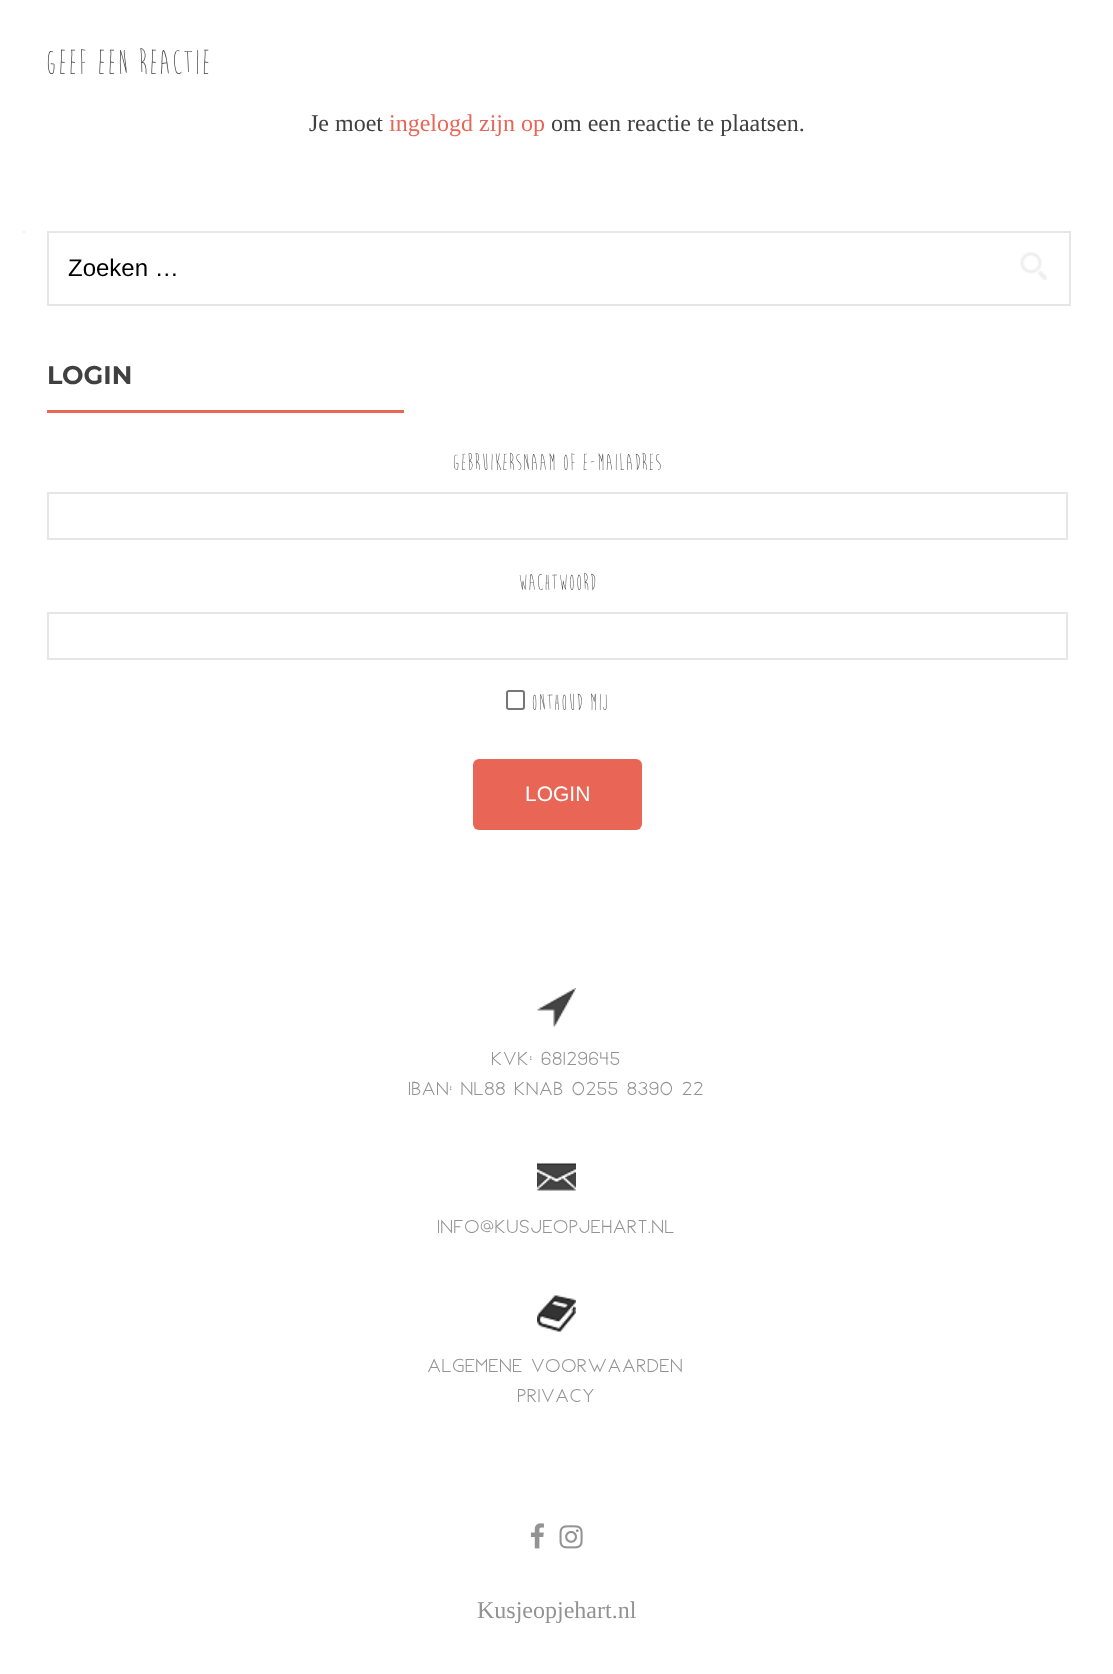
async function draw(canvas) {
  canvas.width = 1113;
  canvas.height = 1674;
  const ctx = canvas.getContext('2d');
  ctx.miterLimit = 4;
  ctx.fontKerning = 'normal';
  function label(s, x, y, font, color) {
    ctx.font = font;
    ctx.fillStyle = color;
    ctx.fillText(s, x, y);
  }
  function rect(x, y, w, h, color) {
    ctx.fillStyle = color;
    ctx.fillRect(x, y, w, h);
  }
  function roundedRect(x, y, w, h, r, color) {
    ctx.fillStyle = color;
    ctx.beginPath();
    ctx.roundRect(x, y, w, h, r);
    ctx.fill();
  }
  async function image(src, x, y, w, h) {
    const img = new Image();
    img.src = src;
    await img.decode();
    ctx.drawImage(img, x, y, w, h);
  }

  rect(0, 0, 1113, 1674, '#fff');
  label('Geef een reactie', 45, 74, '36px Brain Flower', '#404040');
  label('Je moet', 309, 131, '24px Liberation Serif', '#404040');
  label('ingelogd zijn op', 389, 131, '24px Liberation Serif', '#e96656');
  label('om een reactie te plaatsen.', 551, 131, '24px Liberation Serif', '#404040');
  rect(23, 231, 2, 2, '#f2f2f2');
  ctx.strokeStyle = '#e6e6e6';
  ctx.lineWidth = 2;
  ctx.strokeRect(48, 232, 1022, 73);
  label('Zoeken …', 68, 276, '24px Liberation Sans', '#000');
  await image('assets/img1.png', 1020, 251, 27, 29);
  label('LOGIN', 47, 384, 'bold 25.5px Montserrat', '#404040');
  rect(47, 410, 357, 3, '#e96656');
  label('Gebruikersnaam of e-mailadres', 452, 470, '24px Brain Flower', '#404040');
  ctx.strokeRect(48, 493, 1019, 46);
  label('Wachtwoord', 518, 590, '24px Brain Flower', '#404040');
  ctx.strokeRect(48, 613, 1019, 46);
  ctx.beginPath();
  ctx.roundRect(507, 691, 17, 18, 2);
  ctx.strokeStyle = '#767676';
  ctx.stroke();
  label('Onthoud mij', 531, 710, '24px Brain Flower', '#404040');
  roundedRect(473, 759, 169, 71, 6, '#e96656');
  label('LOGIN', 525, 801, '21px Liberation Sans', '#fff');
  await image('assets/img2.png', 537, 988, 39, 39);
  label('KVK: 68129645', 492, 1065, 'bold 15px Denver', '#939393');
  label('IBAN: NL88 KNAB 0255 8390 22', 409, 1095, 'bold 15px Denver', '#939393');
  await image('assets/img3.png', 537, 1162, 39, 29);
  label('info@kusjeopjehart.nl', 438, 1233, 'bold 15px Denver', '#939393');
  await image('assets/img4.png', 537, 1295, 39, 37);
  label('Algemene voorwaarden', 428, 1372, 'bold 15px Denver', '#939393');
  label('Privacy', 518, 1402, 'bold 15px Denver', '#939393');
  await image('assets/img5.png', 530, 1523, 14, 26);
  await image('assets/img6.png', 559, 1525, 24, 24);
  label('Kusjeopjehart.nl', 477, 1618, '24px Liberation Serif', '#939393');
}

draw(document.querySelector('canvas'));
